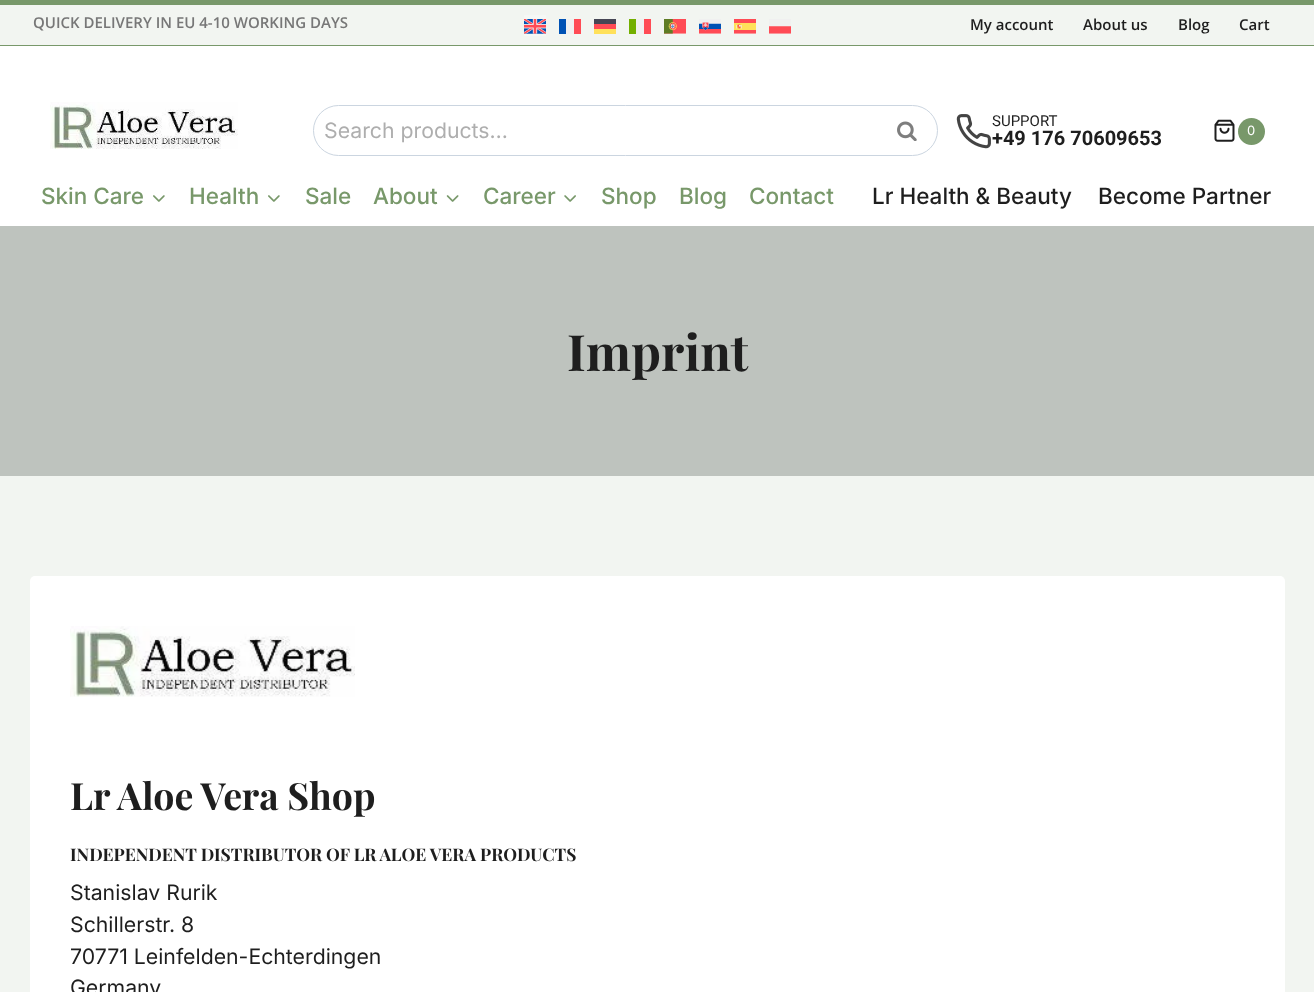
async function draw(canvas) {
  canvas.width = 1314;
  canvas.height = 992;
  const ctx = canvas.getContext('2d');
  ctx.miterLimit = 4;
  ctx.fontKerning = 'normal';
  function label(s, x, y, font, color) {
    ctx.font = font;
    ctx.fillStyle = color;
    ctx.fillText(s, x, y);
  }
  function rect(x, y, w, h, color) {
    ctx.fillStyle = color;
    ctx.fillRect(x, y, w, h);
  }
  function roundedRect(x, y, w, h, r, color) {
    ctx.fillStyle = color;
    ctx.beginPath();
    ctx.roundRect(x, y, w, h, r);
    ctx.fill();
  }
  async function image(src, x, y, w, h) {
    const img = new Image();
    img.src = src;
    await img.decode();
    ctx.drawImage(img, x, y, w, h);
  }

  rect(0, 0, 1314, 992, '#f2f5f1');
  rect(0, 46, 1314, 180, '#fff');
  rect(0, 0, 1314, 5, '#78986a');
  rect(0, 45, 1314, 1, '#78986a');
  label('QUICK DELIVERY IN EU 4-10 WORKING DAYS', 33, 28, '600 15px Open Sans', '#777');
  rect(524, 15, 22, 21, '#f5f8f5');
  await image('assets/img1.png', 524, 19, 22, 15);
  rect(559, 19, 7, 15, '#0052b4');
  rect(566, 19, 8, 15, '#f0f0f0');
  rect(574, 19, 7, 15, '#ff4b55');
  rect(594, 19, 22, 5, '#464655');
  rect(594, 24, 22, 5, '#ff4b55');
  rect(594, 29, 22, 5, '#ffe15a');
  rect(629, 19, 7, 15, '#73af00');
  rect(636, 19, 8, 15, '#f0f0f0');
  rect(644, 19, 7, 15, '#ff4b55');
  await image('assets/img2.png', 664, 19, 22, 15);
  await image('assets/img3.png', 699, 19, 22, 15);
  await image('assets/img4.png', 734, 19, 22, 15);
  await image('assets/img5.png', 769, 19, 22, 15);
  label('My account', 970, 30, '600 15px Open Sans', '#1e1e1e');
  label('About us', 1083, 30, '600 15px Open Sans', '#1e1e1e');
  label('Blog', 1178, 30, '600 15px Open Sans', '#1e1e1e');
  label('Cart', 1239, 30, '600 15px Open Sans', '#1e1e1e');
  await image('assets/img6.png', 50, 102, 188, 47);
  ctx.beginPath();
  ctx.roundRect(313.5, 105.5, 624, 50, 25);
  ctx.strokeStyle = '#cbd5e0';
  ctx.stroke();
  label('Search products…', 324, 138, '21.25px Inter', '#aeaeae');
  await image('assets/img7.png', 897, 121, 20, 20);
  await image('assets/img8.png', 956, 114, 35, 35);
  label('SUPPORT', 992, 126, '15px Roboto', '#1e1e1e');
  label('+49 176 70609653', 992, 145, 'bold 20px Roboto', '#1e1e1e');
  await image('assets/img9.png', 1214, 119, 21, 23);
  ctx.fillStyle = '#78986a';
  ctx.beginPath();
  ctx.arc(1251.5, 131.5, 13.5, 0, 2 * Math.PI);
  ctx.fill();
  label('0', 1247, 135, '13px Inter', '#fff');
  label('Skin Care', 41, 204, '500 22.5px Inter', '#78986a');
  await image('assets/img10.png', 153, 195, 12, 7);
  label('Health', 189, 204, '500 22.5px Inter', '#78986a');
  await image('assets/img10.png', 268, 195, 12, 7);
  label('Sale', 305, 204, '500 22.5px Inter', '#78986a');
  label('About', 373, 204, '500 22.5px Inter', '#78986a');
  await image('assets/img11.png', 446, 195, 13, 7);
  label('Career', 483, 204, '500 22.5px Inter', '#78986a');
  await image('assets/img12.png', 564, 195, 12, 7);
  label('Shop', 601, 204, '500 22.5px Inter', '#78986a');
  label('Blog', 679, 204, '500 22.5px Inter', '#78986a');
  label('Contact', 749, 204, '500 22.5px Inter', '#78986a');
  label('Lr Health & Beauty', 872, 204, '500 22.5px Inter', '#1e1e1e');
  label('Become Partner', 1098, 204, '500 22.5px Inter', '#1e1e1e');
  rect(0, 226, 1314, 250, '#bec3be');
  label('Imprint', 567, 371, 'bold 50px Playfair Display', '#1e1e1e');
  roundedRect(30, 576, 1255, 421, 5, '#fff');
  await image('assets/img13.png', 70, 626, 285, 71);
  label('Lr Aloe Vera Shop', 70, 810, 'bold 37.5px Playfair Display', '#1e1e1e');
  label('INDEPENDENT DISTRIBUTOR OF LR ALOE VERA PRODUCTS', 70, 861, 'bold 17.45px Playfair Display', '#1e1e1e');
  label('Stanislav Rurik', 70, 900, '21.25px Inter', '#1e1e1e');
  label('Schillerstr. 8', 70, 932, '21.25px Inter', '#1e1e1e');
  label('70771 Leinfelden-Echterdingen', 70, 964, '21.25px Inter', '#1e1e1e');
  label('Germany', 70, 995, '21.25px Inter', '#1e1e1e');
}

draw(document.querySelector('canvas'));
